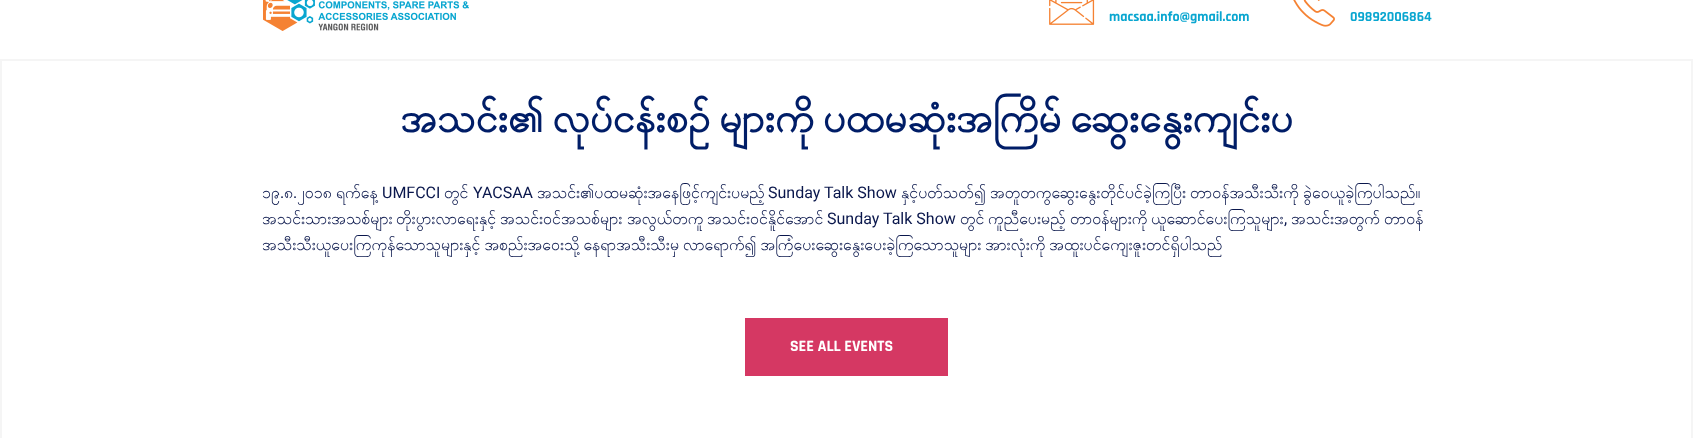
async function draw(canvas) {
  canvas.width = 1693;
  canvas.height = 438;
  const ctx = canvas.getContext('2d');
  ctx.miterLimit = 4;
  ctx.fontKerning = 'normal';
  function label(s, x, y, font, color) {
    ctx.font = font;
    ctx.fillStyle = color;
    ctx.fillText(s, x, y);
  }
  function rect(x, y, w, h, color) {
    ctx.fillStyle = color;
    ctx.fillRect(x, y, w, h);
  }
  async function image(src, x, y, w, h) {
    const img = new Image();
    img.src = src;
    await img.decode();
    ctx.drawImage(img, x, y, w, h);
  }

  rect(0, 0, 1693, 438, '#fff');
  await image('assets/img1.png', 263, 0, 206, 31);
  await image('assets/img2.png', 1049, 0, 46, 25);
  label('macsaa.info@gmail.com', 1109, 21, 'bold 14px Rajdhani', '#09a6d0');
  await image('assets/img3.png', 1293, 0, 42, 27);
  label('09892006864', 1350, 21, 'bold 14px Rajdhani', '#09a6d0');
  ctx.strokeStyle = '#f5f5f5';
  ctx.lineWidth = 2;
  ctx.strokeRect(1, 60, 1691, 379);
  ctx.wordSpacing = '-6px';
  label('အသင်း၏ လုပ်ငန်းစဉ် များကို ပထမဆုံးအကြိမ် ဆွေးနွေးကျင်းပ', 400, 132, 'bold 40px Padauk', '#001d67');
  ctx.wordSpacing = '0px';
  label('၁၉', 262, 198, '16px Padauk', '#0a174c');
  label('.', 280, 198, '16px Roboto', '#0a174c');
  label('၈', 284, 198, '16px Padauk', '#0a174c');
  label('.', 293, 198, '16px Roboto', '#0a174c');
  ctx.wordSpacing = '-2px';
  label('၂၀၁၈ ရက်နေ့', 297, 198, '16px Padauk', '#0a174c');
  ctx.wordSpacing = '0px';
  label('UMFCCI', 382, 198, '16px Roboto', '#0a174c');
  label('တွင်', 444, 198, '16px Padauk', '#0a174c');
  label('YACSAA', 473, 198, '16px Roboto', '#0a174c');
  label('အသင်း၏ပထမဆုံးအနေဖြင့်ကျင်းပမည့်', 537, 198, '16px Padauk', '#0a174c');
  label('Sunday Talk Show', 768, 198, '16px Roboto', '#0a174c');
  label('နှင့်ပတ်သတ်၍', 901, 198, '16px Padauk', '#0a174c');
  label('အတူတကွဆွေးနွေးတိုင်ပင်ခဲ့ကြပြီး', 990, 198, '16px Padauk', '#0a174c');
  label('တာဝန်အသီးသီးကို', 1190, 198, '16px Padauk', '#0a174c');
  label('ခွဲဝေယူခဲ့ကြပါသည်။', 1303, 198, '16px Padauk', '#0a174c');
  label('အသင်းသားအသစ်များ', 262, 224, '16px Padauk', '#0a174c');
  label('တိုးပွားလာရေးနှင့်', 396, 224, '16px Padauk', '#0a174c');
  label('အသင်းဝင်အသစ်များ', 500, 224, '16px Padauk', '#0a174c');
  label('အလွယ်တကူ', 627, 224, '16px Padauk', '#0a174c');
  label('အသင်းဝင်နိူင်အောင်', 707, 224, '16px Padauk', '#0a174c');
  label('Sunday Talk Show', 827, 224, '16px Roboto', '#0a174c');
  label('တွင်', 960, 224, '16px Padauk', '#0a174c');
  label('ကူညီပေးမည့်', 988, 224, '16px Padauk', '#0a174c');
  label('တာဝန်များကို', 1070, 224, '16px Padauk', '#0a174c');
  label('ယူဆောင်ပေးကြသူများ', 1151, 224, '16px Padauk', '#0a174c');
  label(',', 1284, 224, '16px Roboto', '#0a174c');
  label('အသင်းအတွက်', 1291, 224, '16px Padauk', '#0a174c');
  label('တာဝန်', 1384, 224, '16px Padauk', '#0a174c');
  ctx.wordSpacing = '-2px';
  label('အသီးသီးယူပေးကြကုန်သောသူများနှင့် အစည်းအဝေးသို့ နေရာအသီးသီးမှ လာရောက်၍ အကြံပေးဆွေးနွေးပေးခဲ့ကြသောသူများ အားလုံးကို အထူးပင်ကျေးဇူးတင်ရှိပါသည်', 262, 250, '16px Padauk', '#0a174c');
  rect(745, 318, 203, 58, '#d53863');
  ctx.wordSpacing = '0px';
  label('SEE ALL EVENTS', 790, 351, 'bold 16px Rajdhani', '#fff');
}

draw(document.querySelector('canvas'));
